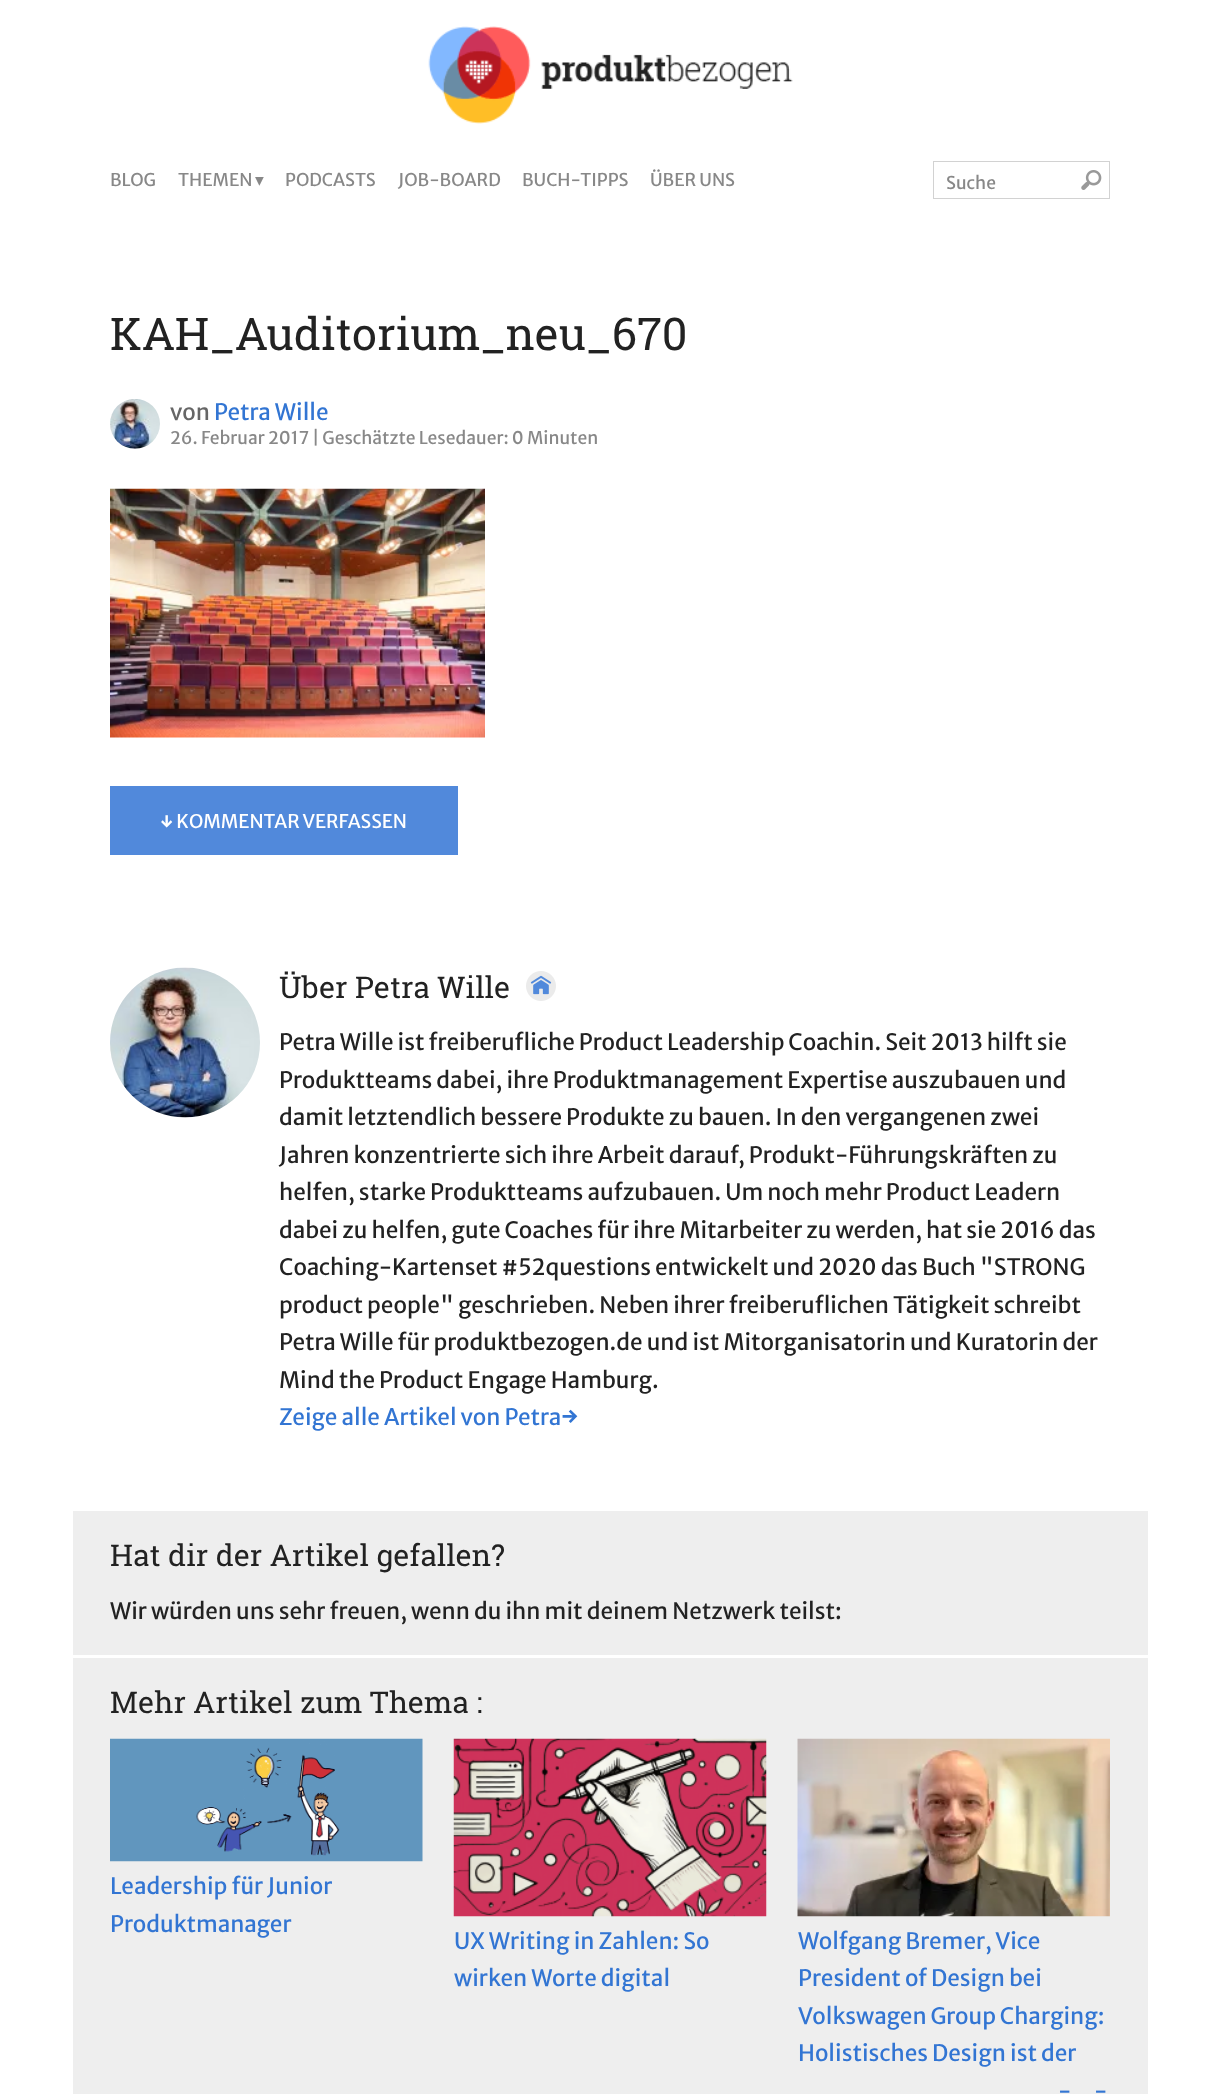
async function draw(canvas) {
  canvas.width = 1220;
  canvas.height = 2094;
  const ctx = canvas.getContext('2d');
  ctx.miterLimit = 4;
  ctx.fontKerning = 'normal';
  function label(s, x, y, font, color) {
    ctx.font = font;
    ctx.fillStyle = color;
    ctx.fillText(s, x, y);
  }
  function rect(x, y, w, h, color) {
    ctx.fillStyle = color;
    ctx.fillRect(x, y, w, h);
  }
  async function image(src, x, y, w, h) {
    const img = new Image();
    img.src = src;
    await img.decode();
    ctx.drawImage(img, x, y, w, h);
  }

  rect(0, 0, 1220, 2094, '#fff');
  await image('assets/img1.png', 428, 26, 365, 98);
  label('BLOG', 110, 186, '17.5px Merriweather Sans', '#888');
  label('THEMEN', 178, 186, '17.5px Merriweather Sans', '#888');
  label('▾', 255, 186, '17.5px DejaVu Sans', '#888');
  label('PODCASTS', 285, 186, '17.5px Merriweather Sans', '#888');
  label('JOB-BOARD', 398, 186, '17.5px Merriweather Sans', '#888');
  label('BUCH-TIPPS', 522, 186, '17.5px Merriweather Sans', '#888');
  label('ÜBER UNS', 650, 186, '17.5px Merriweather Sans', '#888');
  ctx.strokeStyle = '#d2d2d2';
  ctx.strokeRect(933.5, 161.5, 176, 37);
  label('Suche', 946, 189, '17.5px Merriweather Sans', '#888');
  await image('assets/img2.png', 1081, 170, 21, 20);
  label('KAH_Auditorium_neu_670', 110, 350, '45px Roboto Slab', '#222');
  await image('assets/img3.png', 110, 399, 50, 50);
  label('von', 170, 420, '22.5px Merriweather Sans', '#666');
  label('Petra Wille', 214, 420, '22.5px Merriweather Sans', '#3275d3');
  label('26. Februar 2017', 170, 444, '17.5px Merriweather Sans', '#888');
  label('| Geschätzte Lesedauer: 0 Minuten', 312, 444, '17.5px Merriweather Sans', '#888');
  await image('assets/img4.png', 110, 488, 375, 250);
  rect(110, 786, 348, 69, '#5189db');
  label('↓ KOMMENTAR VERFASSEN', 160, 828, '18.75px Merriweather Sans', '#fff');
  await image('assets/img5.png', 110, 967, 150, 151);
  label('Über Petra Wille', 279, 998, '30px Roboto Slab', '#222');
  await image('assets/img6.png', 526, 971, 30, 30);
  label('Petra Wille ist freiberufliche Product Leadership Coachin. Seit 2013 hilft sie', 279, 1050, '22.5px Merriweather Sans', '#222');
  label('Produktteams dabei, ihre Produktmanagement Expertise auszubauen und', 279, 1088, '22.5px Merriweather Sans', '#222');
  label('damit letztendlich bessere Produkte zu bauen. In den vergangenen zwei', 279, 1125, '22.5px Merriweather Sans', '#222');
  label('Jahren konzentrierte sich ihre Arbeit darauf, Produkt-Führungskräften zu', 279, 1163, '22.5px Merriweather Sans', '#222');
  label('helfen, starke Produktteams aufzubauen. Um noch mehr Product Leadern', 279, 1200, '22.5px Merriweather Sans', '#222');
  label('dabei zu helfen, gute Coaches für ihre Mitarbeiter zu werden, hat sie 2016 das', 279, 1238, '22.5px Merriweather Sans', '#222');
  label('Coaching-Kartenset #52questions entwickelt und 2020 das Buch "STRONG', 279, 1275, '22.5px Merriweather Sans', '#222');
  label('product people" geschrieben. Neben ihrer freiberuflichen Tätigkeit schreibt', 279, 1313, '22.5px Merriweather Sans', '#222');
  label('Petra Wille für produktbezogen.de und ist Mitorganisatorin und Kuratorin der', 279, 1350, '22.5px Merriweather Sans', '#222');
  label('Mind the Product Engage Hamburg.', 279, 1388, '22.5px Merriweather Sans', '#222');
  label('Zeige alle Artikel von Petra→', 279, 1425, '22.5px Merriweather Sans', '#3275d3');
  rect(73, 1511, 1075, 144, '#eee');
  label('Hat dir der Artikel gefallen?', 110, 1566, '30px Roboto Slab', '#222');
  label('Wir würden uns sehr freuen, wenn du ihn mit deinem Netzwerk teilst:', 110, 1619, '22.5px Merriweather Sans', '#222');
  rect(73, 1658, 1075, 436, '#eee');
  label('Mehr Artikel zum Thema :', 110, 1713, '30px Roboto Slab', '#222');
  await image('assets/img7.png', 110, 1738, 313, 124);
  label('Leadership für Junior', 110, 1894, '22.5px Merriweather Sans', '#3275d3');
  label('Produktmanager', 110, 1932, '22.5px Merriweather Sans', '#3275d3');
  await image('assets/img8.png', 453, 1738, 314, 179);
  label('UX Writing in Zahlen: So', 454, 1949, '22.5px Merriweather Sans', '#3275d3');
  label('wirken Worte digital', 454, 1986, '22.5px Merriweather Sans', '#3275d3');
  await image('assets/img9.png', 797, 1738, 313, 179);
  label('Wolfgang Bremer, Vice', 798, 1949, '22.5px Merriweather Sans', '#3275d3');
  label('President of Design bei', 798, 1986, '22.5px Merriweather Sans', '#3275d3');
  label('Volkswagen Group Charging:', 798, 2024, '22.5px Merriweather Sans', '#3275d3');
  label('Holistisches Design ist der', 798, 2061, '22.5px Merriweather Sans', '#3275d3');
  label('-', 1058, 2099, '22.5px Merriweather Sans', '#3275d3');
  label('-', 1094, 2099, '22.5px Merriweather Sans', '#3275d3');
}

draw(document.querySelector('canvas'));
